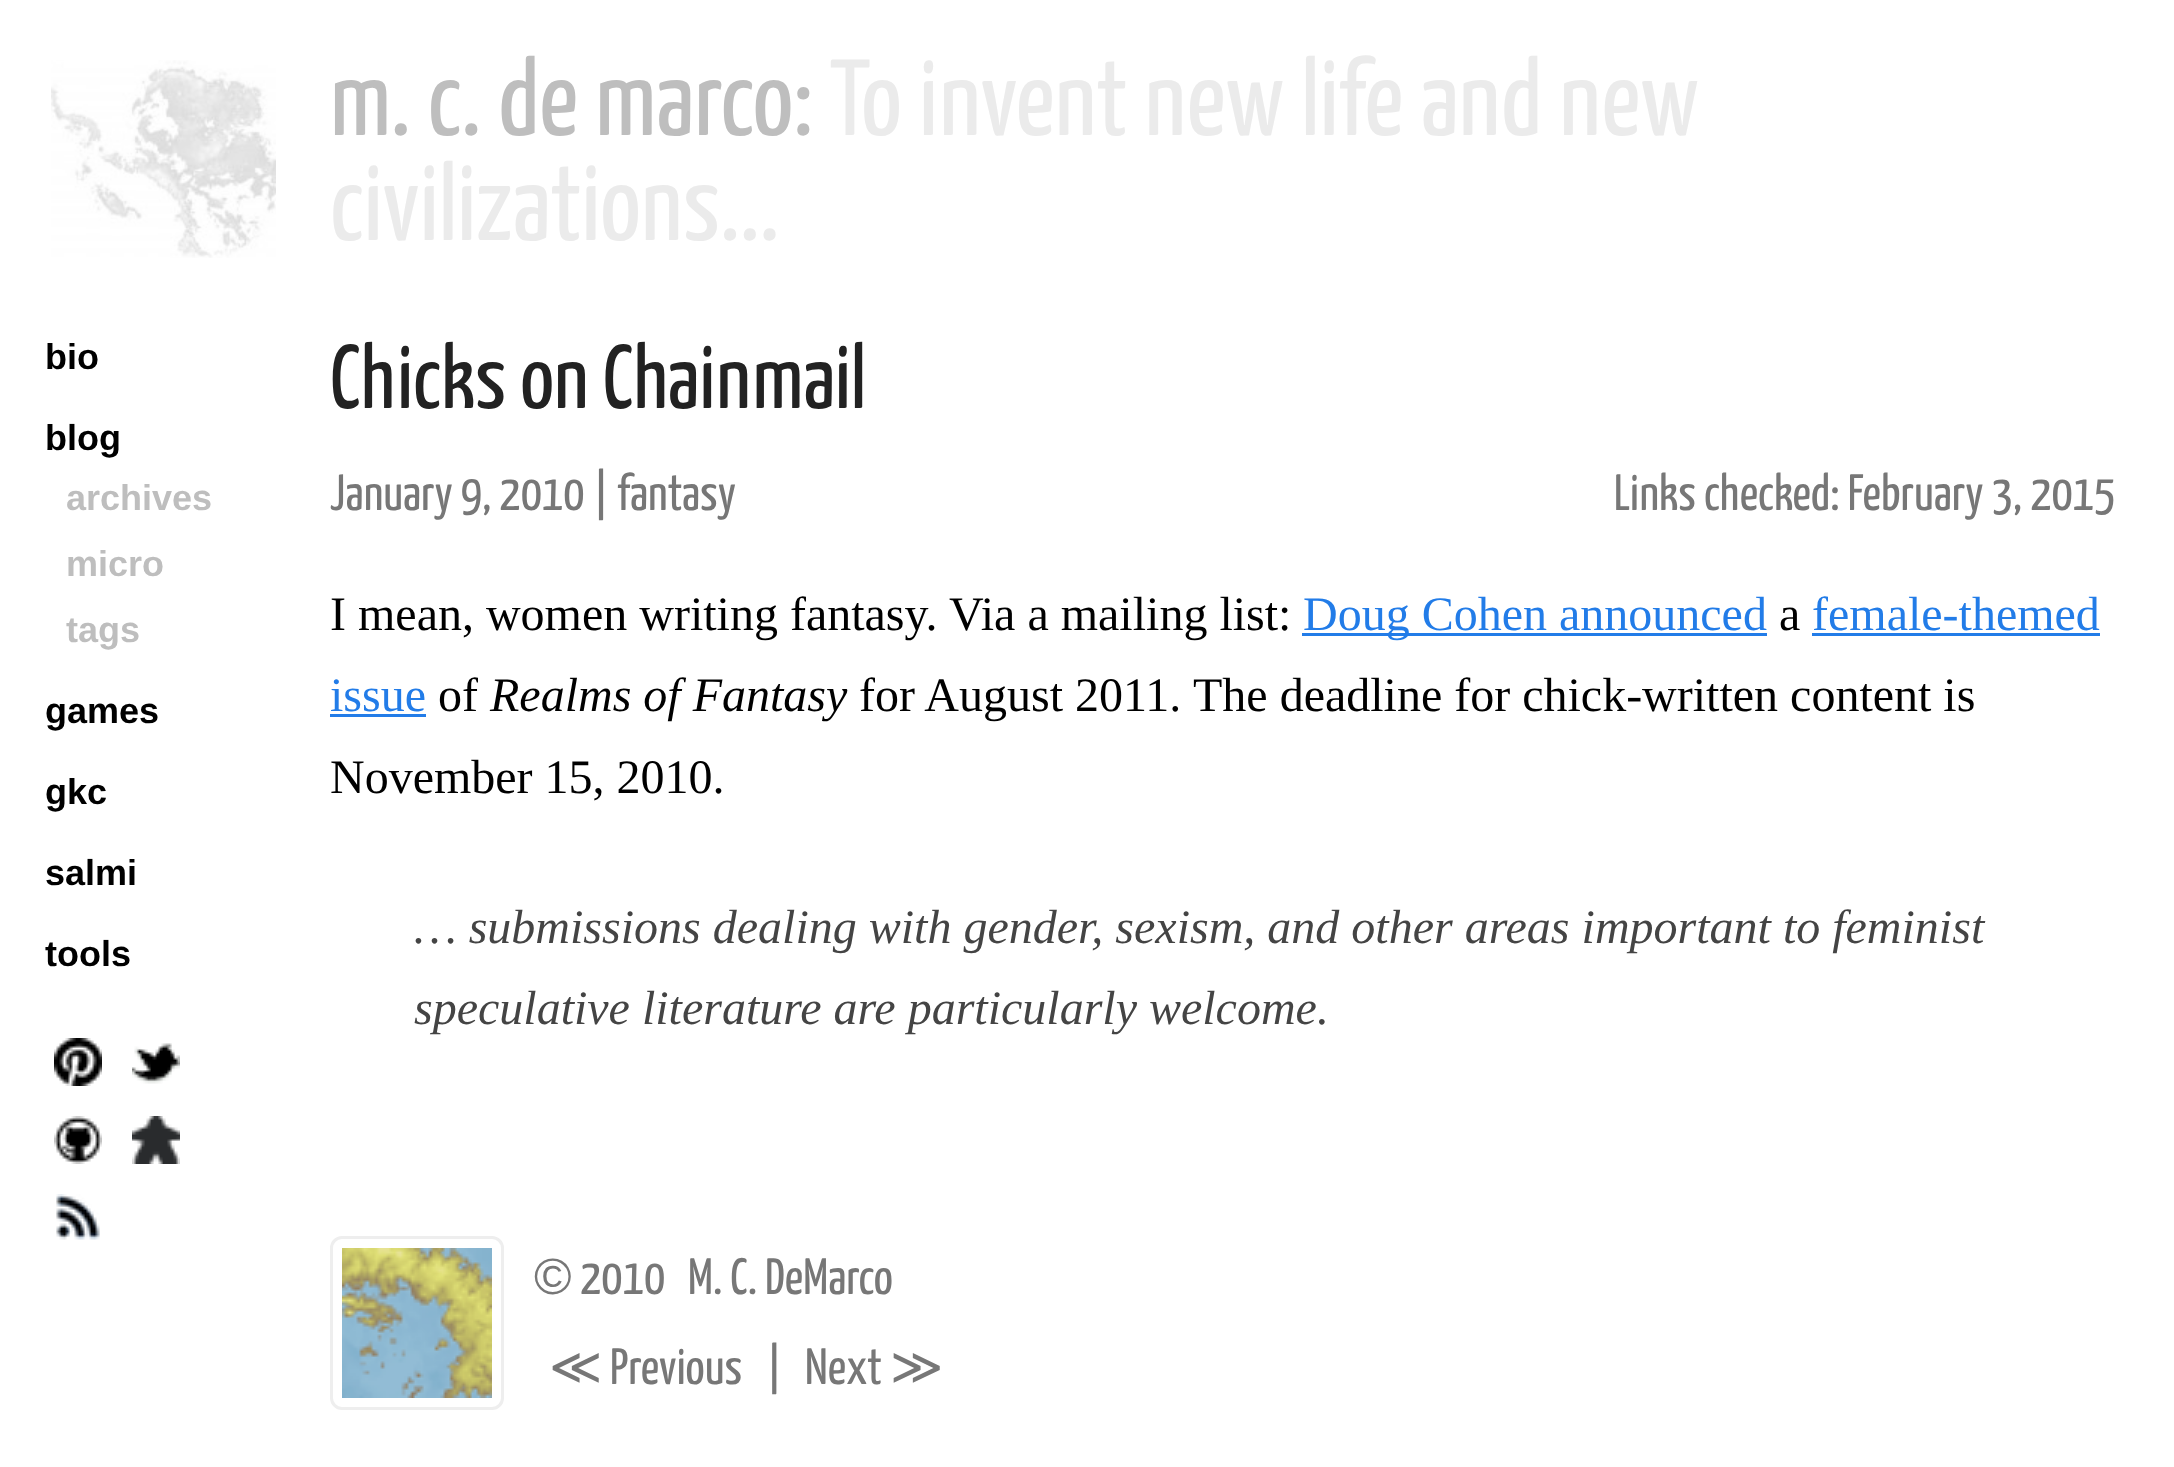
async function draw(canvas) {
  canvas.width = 2174;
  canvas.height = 1467;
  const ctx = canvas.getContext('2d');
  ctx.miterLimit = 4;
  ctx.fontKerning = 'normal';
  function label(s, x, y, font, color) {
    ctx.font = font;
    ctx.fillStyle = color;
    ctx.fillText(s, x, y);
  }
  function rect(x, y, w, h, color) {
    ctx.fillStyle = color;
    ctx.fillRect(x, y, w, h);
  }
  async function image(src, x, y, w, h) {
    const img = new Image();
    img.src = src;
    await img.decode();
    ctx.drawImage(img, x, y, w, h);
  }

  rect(0, 0, 2174, 1467, '#fff');
  label('m. c. de marco:', 330, 135, '200 108px Yanone Kaffeesatz', '#bebebe');
  label('To invent new life and new', 830, 135, '200 108px Yanone Kaffeesatz', '#ebebeb');
  label('civilizations...', 330, 240, '200 108px Yanone Kaffeesatz', '#ebebeb');
  await image('assets/img1.png', 51, 60, 225, 198);
  label('bio', 45, 369, 'bold 36px Liberation Sans', '#000');
  label('blog', 45, 450, 'bold 36px Liberation Sans', '#000');
  label('archives', 66, 510, 'bold 36px Liberation Sans', '#bebebe');
  label('micro', 66, 576, 'bold 36px Liberation Sans', '#bebebe');
  label('tags', 66, 642, 'bold 36px Liberation Sans', '#bebebe');
  label('games', 45, 723, 'bold 36px Liberation Sans', '#000');
  label('gkc', 45, 804, 'bold 36px Liberation Sans', '#000');
  label('salmi', 45, 885, 'bold 36px Liberation Sans', '#000');
  label('tools', 45, 966, 'bold 36px Liberation Sans', '#000');
  await image('assets/img2.png', 54, 1038, 48, 48);
  await image('assets/img3.png', 132, 1043, 48, 41);
  await image('assets/img4.png', 54, 1116, 48, 48);
  await image('assets/img5.png', 132, 1116, 48, 48);
  await image('assets/img6.png', 56, 1194, 44, 46);
  label('Chicks on Chainmail', 330, 408, '200 90px Yanone Kaffeesatz', '#222');
  label('January 9, 2010 | fantasy', 330, 510, '200 51px Yanone Kaffeesatz', '#777');
  label('Links checked: February 3, 2015', 1614, 510, '200 51px Yanone Kaffeesatz', '#777');
  label('I mean, women writing fantasy.', 330, 630, '48px Liberation Serif', '#000');
  label('Via a mailing list:', 949, 630, '48px Liberation Serif', '#000');
  rect(1302, 633, 465, 3, '#227ce8');
  label('Doug Cohen announced', 1303, 630, '48px Liberation Serif', '#227ce8');
  label('a', 1779, 630, '48px Liberation Serif', '#000');
  label('female-themed', 1812, 630, '48px Liberation Serif', '#227ce8');
  rect(1812, 633, 288, 3, '#227ce8');
  label('issue', 330, 711, '48px Liberation Serif', '#227ce8');
  rect(330, 714, 96, 3, '#227ce8');
  label('of', 438, 711, '48px Liberation Serif', '#000');
  label('Realms of Fantasy', 490, 711, 'italic 48px Liberation Serif', '#000');
  label('for August 2011.', 859, 711, '48px Liberation Serif', '#000');
  label('The deadline for chick-written content is', 1193, 711, '48px Liberation Serif', '#000');
  label('November 15, 2010.', 330, 793, '48px Liberation Serif', '#000');
  label('… submissions dealing with gender, sexism, and other areas important to feminist', 414, 943, 'italic 48px Liberation Serif', '#444');
  label('speculative literature are particularly welcome.', 414, 1024, 'italic 48px Liberation Serif', '#444');
  ctx.beginPath();
  ctx.roundRect(331.5, 1237.5, 171, 171, 10.5);
  ctx.strokeStyle = '#eee';
  ctx.lineWidth = 3;
  ctx.stroke();
  await image('assets/img7.png', 342, 1248, 150, 150);
  label('©', 534, 1294, '51px Liberation Sans', '#777');
  label('2010', 580, 1294, '200 51px Yanone Kaffeesatz', '#777');
  label('M. C. DeMarco', 688, 1294, '200 51px Yanone Kaffeesatz', '#777');
  label('≪', 549, 1384, '51px DejaVu Sans', '#777');
  label('Previous', 610, 1384, '200 51px Yanone Kaffeesatz', '#777');
  label('|', 766, 1384, '200 51px Yanone Kaffeesatz', '#777');
  label('Next', 805, 1384, '200 51px Yanone Kaffeesatz', '#777');
  label('≫', 890, 1384, '51px DejaVu Sans', '#777');
}

draw(document.querySelector('canvas'));
